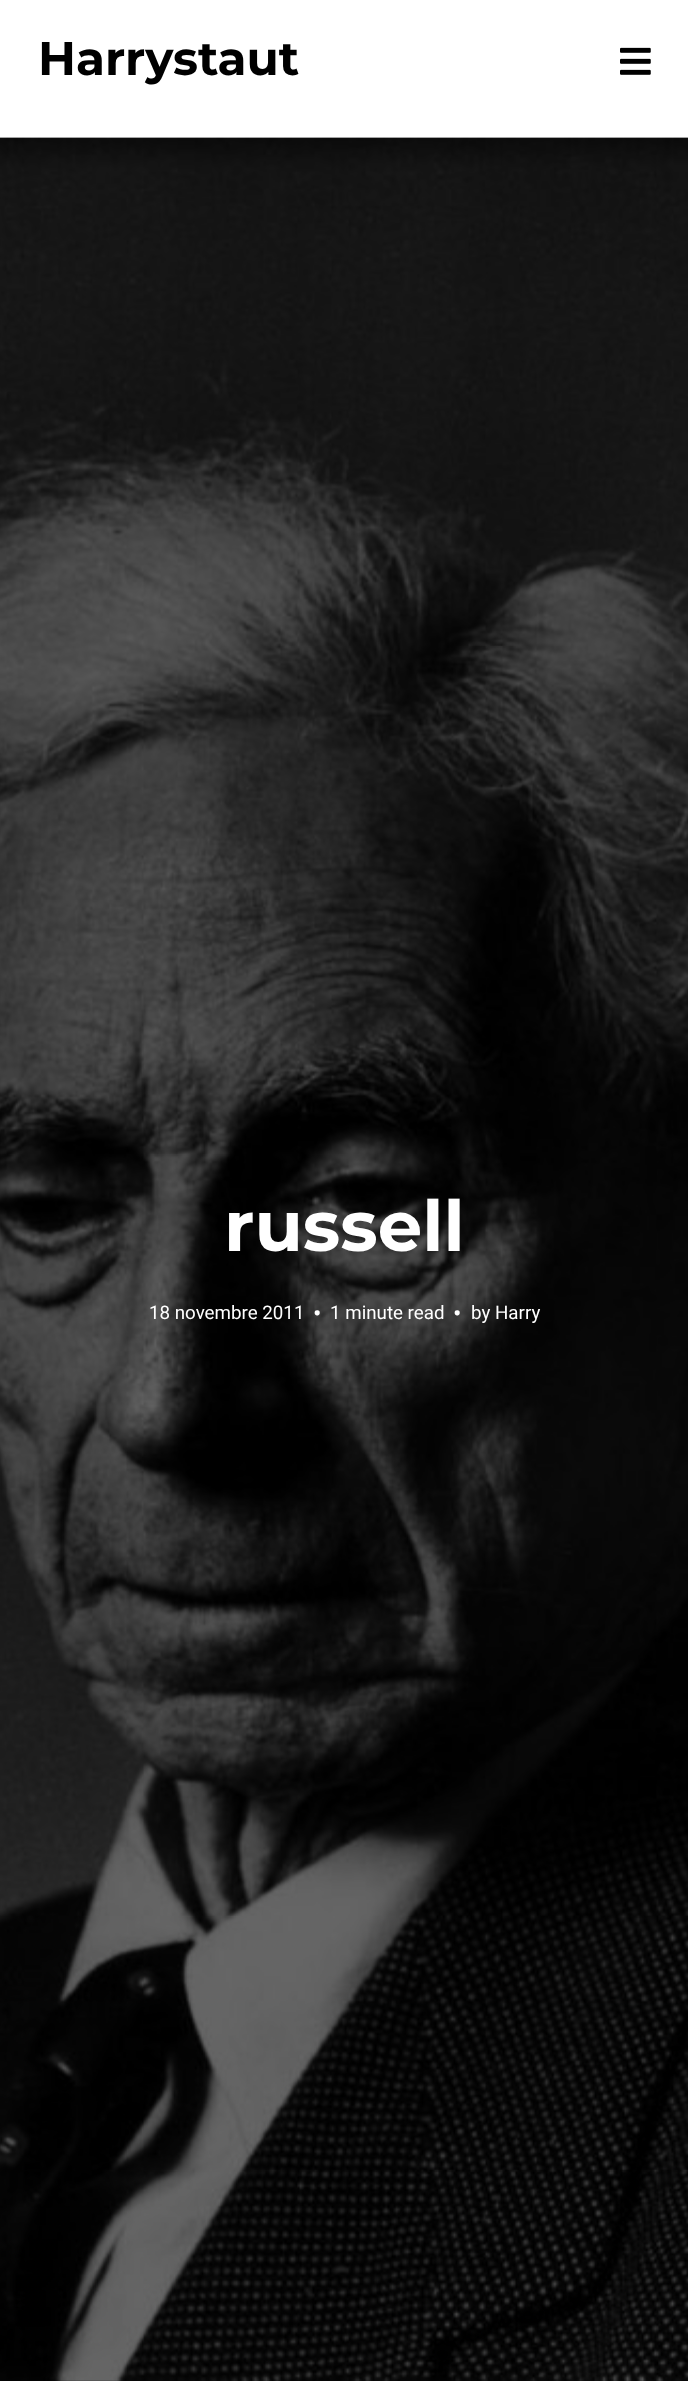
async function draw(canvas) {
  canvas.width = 688;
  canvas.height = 2381;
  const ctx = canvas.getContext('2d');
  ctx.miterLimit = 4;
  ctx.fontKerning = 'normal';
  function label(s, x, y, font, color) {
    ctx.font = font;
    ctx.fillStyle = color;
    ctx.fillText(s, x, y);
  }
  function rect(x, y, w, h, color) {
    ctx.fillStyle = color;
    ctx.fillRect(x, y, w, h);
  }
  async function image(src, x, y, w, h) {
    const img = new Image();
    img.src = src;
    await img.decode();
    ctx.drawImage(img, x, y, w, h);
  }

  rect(0, 0, 688, 2381, '#fff');
  label('Harrystaut', 38, 75, 'bold 47px Montserrat', '#000');
  await image('assets/img1.png', 620, 47, 31, 28);
  rect(0, 138, 688, 2243, '#000');
  await image('assets/img2.png', 0, 137, 688, 2244);
  label('russell', 224, 1251, 'bold 70.5px Montserrat', '#fff');
  label('18 novembre 2011', 149, 1319, '18.75px Roboto', '#fff');
  label('•', 313, 1322, '25px Roboto', '#fff');
  label('1 minute read', 330, 1319, '18.75px Roboto', '#fff');
  label('•', 453, 1322, '25px Roboto', '#fff');
  label('by Harry', 471, 1319, '18.75px Roboto', '#fff');
}

draw(document.querySelector('canvas'));
